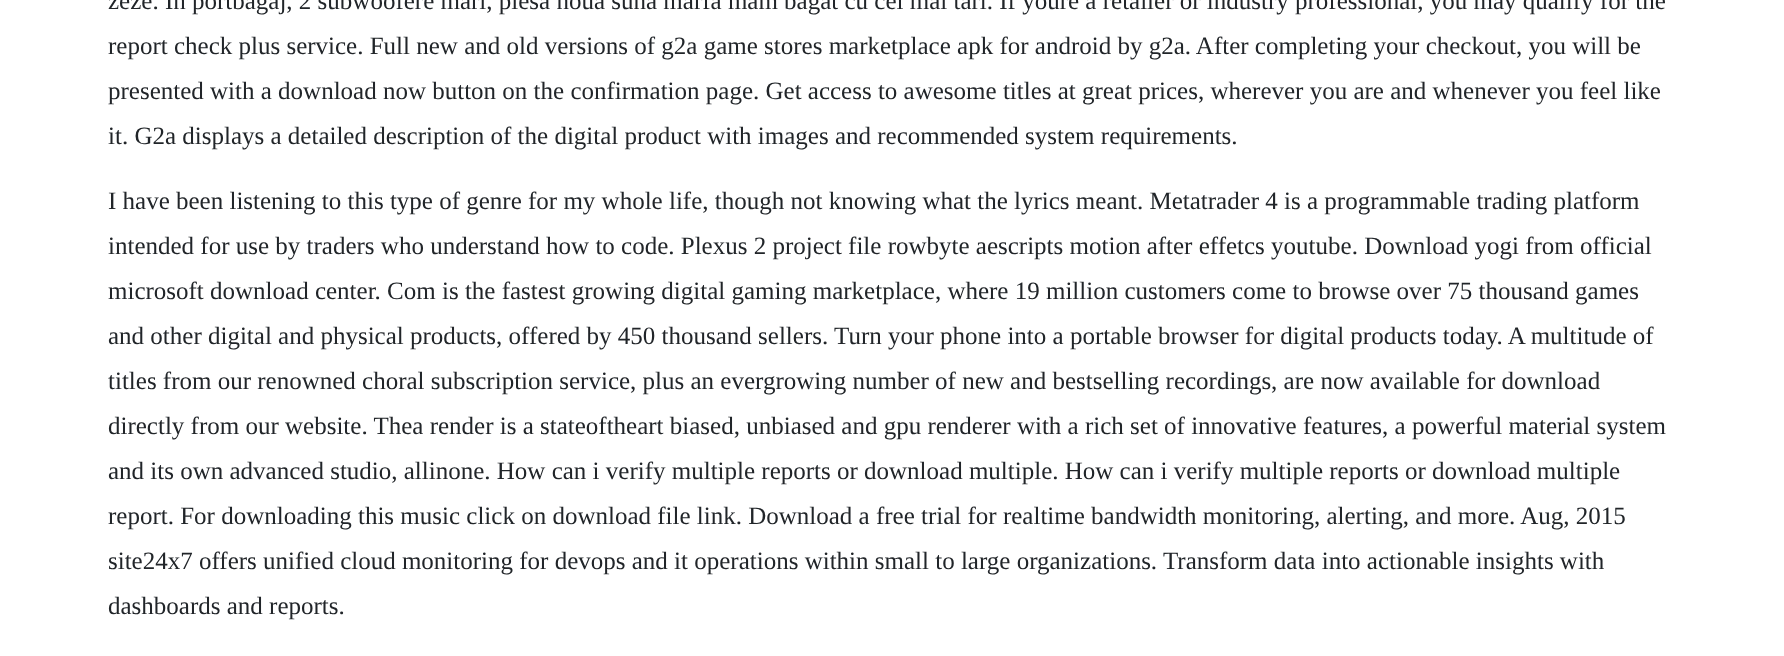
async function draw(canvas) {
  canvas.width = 1784;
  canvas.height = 656;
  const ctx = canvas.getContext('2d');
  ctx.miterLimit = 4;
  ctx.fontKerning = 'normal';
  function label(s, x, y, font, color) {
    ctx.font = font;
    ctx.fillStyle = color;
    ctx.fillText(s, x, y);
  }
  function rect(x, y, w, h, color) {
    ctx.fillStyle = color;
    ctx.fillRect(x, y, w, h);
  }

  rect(0, 0, 1784, 656, '#fff');
  label('zeze. In portbagaj, 2 subwoofere mari, piesa noua suna marfa mam bagat cu cei mai tari. If youre a retailer or industry professional, you may qualify for the', 108, 9, '25px Liberation Serif', '#212529');
  label('report check plus service. Full new and old versions of g2a game stores marketplace apk for android by g2a. After completing your checkout, you will be', 108, 54, '25px Liberation Serif', '#212529');
  label('presented with a download now button on the confirmation page. Get access to awesome titles at great prices, wherever you are and whenever you feel like', 108, 99, '25px Liberation Serif', '#212529');
  label('it. G2a displays a detailed description of the digital product with images and recommended system requirements.', 108, 144, '25px Liberation Serif', '#212529');
  label('I have been listening to this type of genre for my whole life, though not knowing what the lyrics meant. Metatrader 4 is a programmable trading platform', 108, 209, '25px Liberation Serif', '#212529');
  label('intended for use by traders who understand how to code. Plexus 2 project file rowbyte aescripts motion after effetcs youtube. Download yogi from official', 108, 254, '25px Liberation Serif', '#212529');
  label('microsoft download center. Com is the fastest growing digital gaming marketplace, where 19 million customers come to browse over 75 thousand games', 108, 299, '25px Liberation Serif', '#212529');
  label('and other digital and physical products, offered by 450 thousand sellers. Turn your phone into a portable browser for digital products today. A multitude of', 108, 344, '25px Liberation Serif', '#212529');
  label('titles from our renowned choral subscription service, plus an evergrowing number of new and bestselling recordings, are now available for download', 108, 389, '25px Liberation Serif', '#212529');
  label('directly from our website. Thea render is a stateoftheart biased, unbiased and gpu renderer with a rich set of innovative features, a powerful material system', 108, 434, '25px Liberation Serif', '#212529');
  label('and its own advanced studio, allinone. How can i verify multiple reports or download multiple. How can i verify multiple reports or download multiple', 108, 479, '25px Liberation Serif', '#212529');
  label('report. For downloading this music click on download file link. Download a free trial for realtime bandwidth monitoring, alerting, and more. Aug, 2015', 108, 524, '25px Liberation Serif', '#212529');
  label('site24x7 offers unified cloud monitoring for devops and it operations within small to large organizations. Transform data into actionable insights with', 108, 569, '25px Liberation Serif', '#212529');
  label('dashboards and reports.', 108, 614, '25px Liberation Serif', '#212529');
}

draw(document.querySelector('canvas'));
